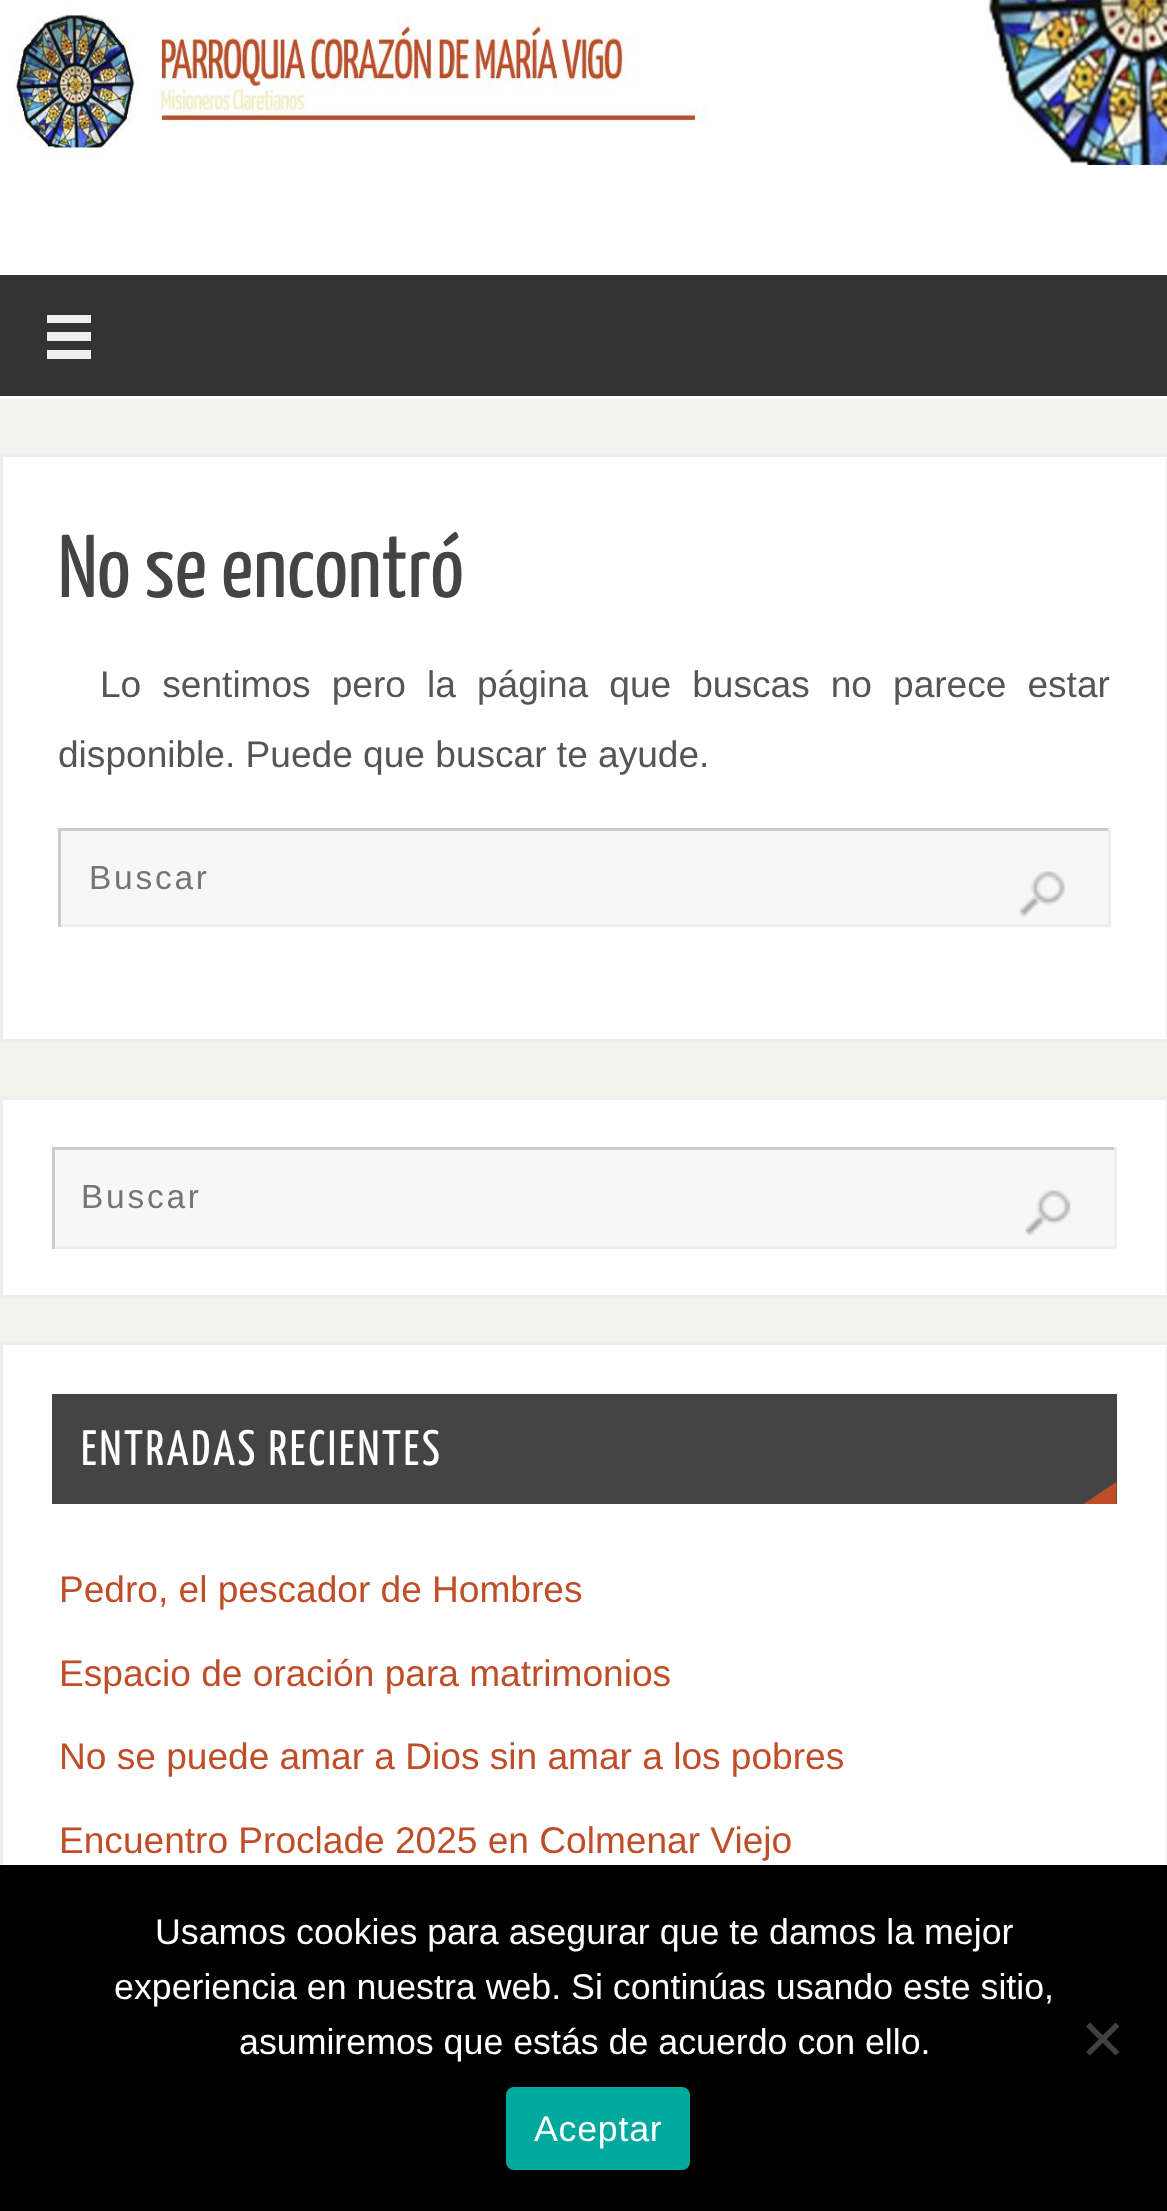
async function draw(canvas) {
  canvas.width = 1167;
  canvas.height = 2211;
  const ctx = canvas.getContext('2d');
  ctx.miterLimit = 4;
  ctx.fontKerning = 'normal';
  function label(s, x, y, font, color) {
    ctx.font = font;
    ctx.fillStyle = color;
    ctx.fillText(s, x, y);
  }
  function rect(x, y, w, h, color) {
    ctx.fillStyle = color;
    ctx.fillRect(x, y, w, h);
  }
  function roundedRect(x, y, w, h, r, color) {
    ctx.fillStyle = color;
    ctx.beginPath();
    ctx.roundRect(x, y, w, h, r);
    ctx.fill();
  }
  async function image(src, x, y, w, h) {
    const img = new Image();
    img.src = src;
    await img.decode();
    ctx.drawImage(img, x, y, w, h);
  }
  let path;

  rect(0, 0, 1167, 2211, '#f3f3ee');
  rect(0, 0, 1167, 399, '#fff');
  await image('assets/img1.png', 14, 0, 1153, 165);
  rect(0, 275, 1167, 121, '#333');
  ctx.fillStyle = '#eee';
  path = new Path2D('M47 315V323H91V315ZM47 332V341H91V332ZM47 350V359H91V350Z');
  ctx.fill(path);
  ctx.fillStyle = '#fff';
  ctx.beginPath();
  ctx.rect(1.5, 455.5, 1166, 585);
  ctx.fill();
  ctx.strokeStyle = '#eee';
  ctx.lineWidth = 3;
  ctx.stroke();
  label('No se encontró', 58, 597, '89px Yanone Kaffeesatz', '#444');
  ctx.wordSpacing = '10.75px';
  label('Lo sentimos pero la página que buscas no parece estar', 100, 697, '37.1px Liberation Sans', '#555');
  ctx.wordSpacing = '0px';
  label('disponible. Puede que buscar te ayude.', 58, 767, '37.1px Liberation Sans', '#555');
  rect(61, 831, 1047, 93, '#f7f7f7');
  rect(58, 828, 1053, 3, '#ccc');
  rect(1108, 828, 3, 99, '#eee');
  rect(58, 924, 1053, 3, '#eee');
  rect(58, 828, 3, 99, '#ccc');
  ctx.letterSpacing = '2.75px';
  label('Buscar', 89, 889, '33.5px Liberation Sans', '#757575');
  await image('assets/img2.png', 1019, 871, 46, 46);
  ctx.fillStyle = '#fff';
  ctx.beginPath();
  ctx.rect(1.5, 1098.5, 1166, 198);
  ctx.fill();
  ctx.stroke();
  rect(55, 1150, 1059, 96, '#f7f7f7');
  rect(52, 1147, 1065, 3, '#ccc');
  rect(1114, 1147, 3, 102, '#eee');
  rect(52, 1246, 1065, 3, '#eee');
  rect(52, 1147, 3, 102, '#ccc');
  label('Buscar', 81, 1208, '33.5px Liberation Sans', '#757575');
  await image('assets/img3.png', 1025, 1190, 46, 46);
  rect(3, 1345, 1163, 520, '#fff');
  ctx.strokeRect(1.5, 1343.5, 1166, 679);
  rect(52, 1394, 1065, 110, '#444');
  label('ENTRADAS RECIENTES', 81, 1465, '49.5px Yanone Kaffeesatz', '#fff');
  ctx.fillStyle = '#bf4d28';
  path = new Path2D('M1116.5 1504H1083.5L1116.5 1482Z');
  ctx.fill(path);
  ctx.letterSpacing = '0px';
  label('Pedro, el pescador de Hombres', 59, 1602, '37.1px Liberation Sans', '#bf4d28');
  label('Espacio de oración para matrimonios', 59, 1686, '37.1px Liberation Sans', '#bf4d28');
  label('No se puede amar a Dios sin amar a los pobres', 59, 1769, '37.1px Liberation Sans', '#bf4d28');
  label('Encuentro Proclade 2025 en Colmenar Viejo', 59, 1853, '37.1px Liberation Sans', '#bf4d28');
  rect(0, 1865, 1167, 346, '#000');
  label('Usamos cookies para asegurar que te damos la mejor', 155, 1944, '35.75px Liberation Sans', '#fff');
  label('experiencia en nuestra web. Si continúas usando este sitio,', 114, 1999, '35.75px Liberation Sans', '#fff');
  label('asumiremos que estás de acuerdo con ello.', 239, 2054, '35.75px Liberation Sans', '#fff');
  ctx.fillStyle = '#404040';
  path = new Path2D('M1115.5 2022.5L1119.5 2026.5L1090 2055.5L1086 2052Z');
  ctx.fill(path);
  path = new Path2D('M1086 2026.5L1090 2022.5L1119.5 2052L1115.5 2055.5Z');
  ctx.fill(path);
  roundedRect(506, 2087, 184, 83, 8, '#00a99d');
  ctx.letterSpacing = '0.75px';
  label('Aceptar', 534, 2141, '35.75px Liberation Sans', '#fff');
}

draw(document.querySelector('canvas'));
